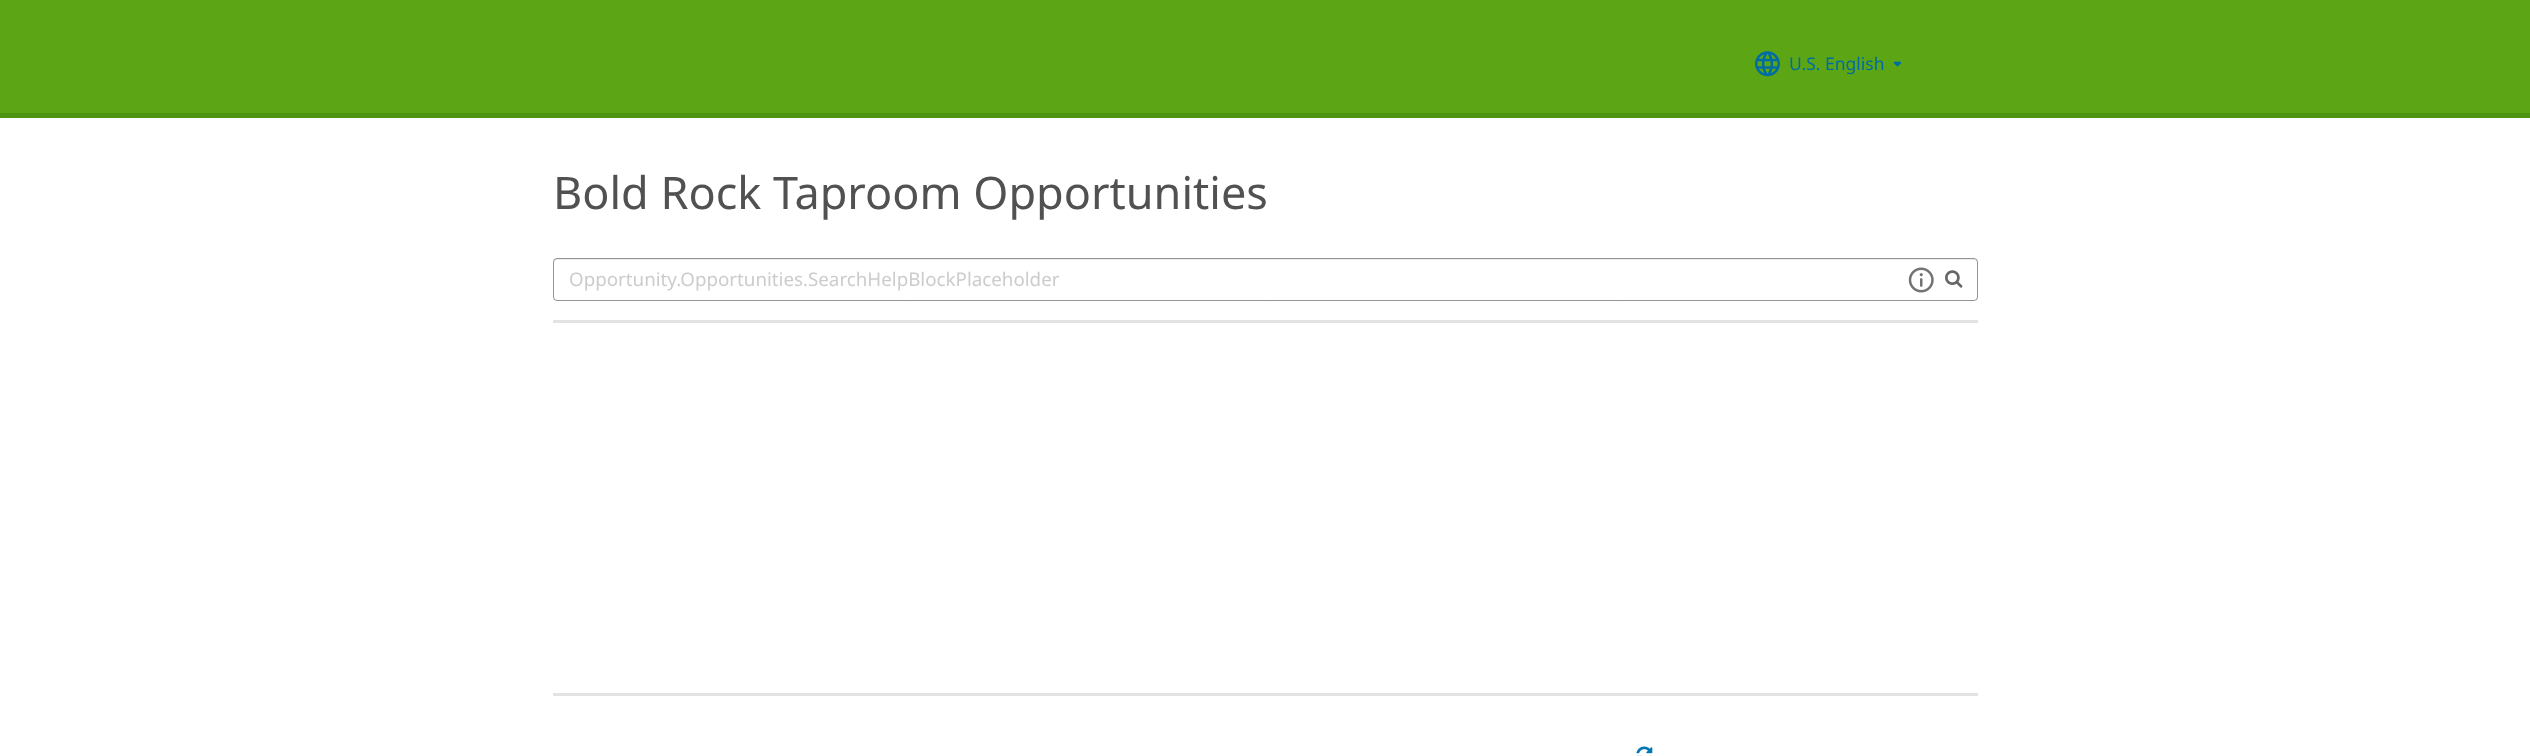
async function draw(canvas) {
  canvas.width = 2530;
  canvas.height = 756;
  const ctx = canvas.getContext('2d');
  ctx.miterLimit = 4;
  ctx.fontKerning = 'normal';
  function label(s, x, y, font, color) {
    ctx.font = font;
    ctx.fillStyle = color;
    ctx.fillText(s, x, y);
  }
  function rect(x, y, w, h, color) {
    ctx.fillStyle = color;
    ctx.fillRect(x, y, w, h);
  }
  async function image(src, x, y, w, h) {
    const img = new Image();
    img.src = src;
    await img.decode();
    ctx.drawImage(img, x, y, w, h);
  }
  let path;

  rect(0, 0, 2530, 756, '#fff');
  rect(0, 0, 2530, 113, '#5ca616');
  rect(0, 113, 2530, 5, '#4b9510');
  await image('assets/img1.png', 1755, 51, 25, 26);
  label('U.S. English', 1789, 70, '17.5px Noto Sans', '#016ca2');
  await image('assets/img2.png', 1893, 61, 9, 6);
  label('Bold Rock Taproom Opportunities', 553, 209, '45px Noto Sans', '#515151');
  ctx.fillStyle = '#ececec';
  path = new Path2D('M556 260H1974C1975 260 1976 261 1976 262C1976 260 1975 259 1974 259H556C555 259 554 260 554 262C554 261 555 260 556 260Z');
  ctx.fill(path);
  ctx.beginPath();
  ctx.roundRect(553.5, 258.5, 1424, 42, 3.5);
  ctx.strokeStyle = '#0000006b';
  ctx.stroke();
  label('Opportunity.Opportunities.SearchHelpBlockPlaceholder', 569, 286, '18.75px Noto Sans', '#ccc');
  await image('assets/img3.png', 1908, 267, 26, 26);
  await image('assets/img4.png', 1945, 270, 18, 18);
  rect(553, 320, 1425, 3, '#e3e3e3');
  rect(553, 693, 1425, 3, '#e3e3e3');
  await image('assets/img5.png', 1636, 746, 17, 10);
}

draw(document.querySelector('canvas'));
